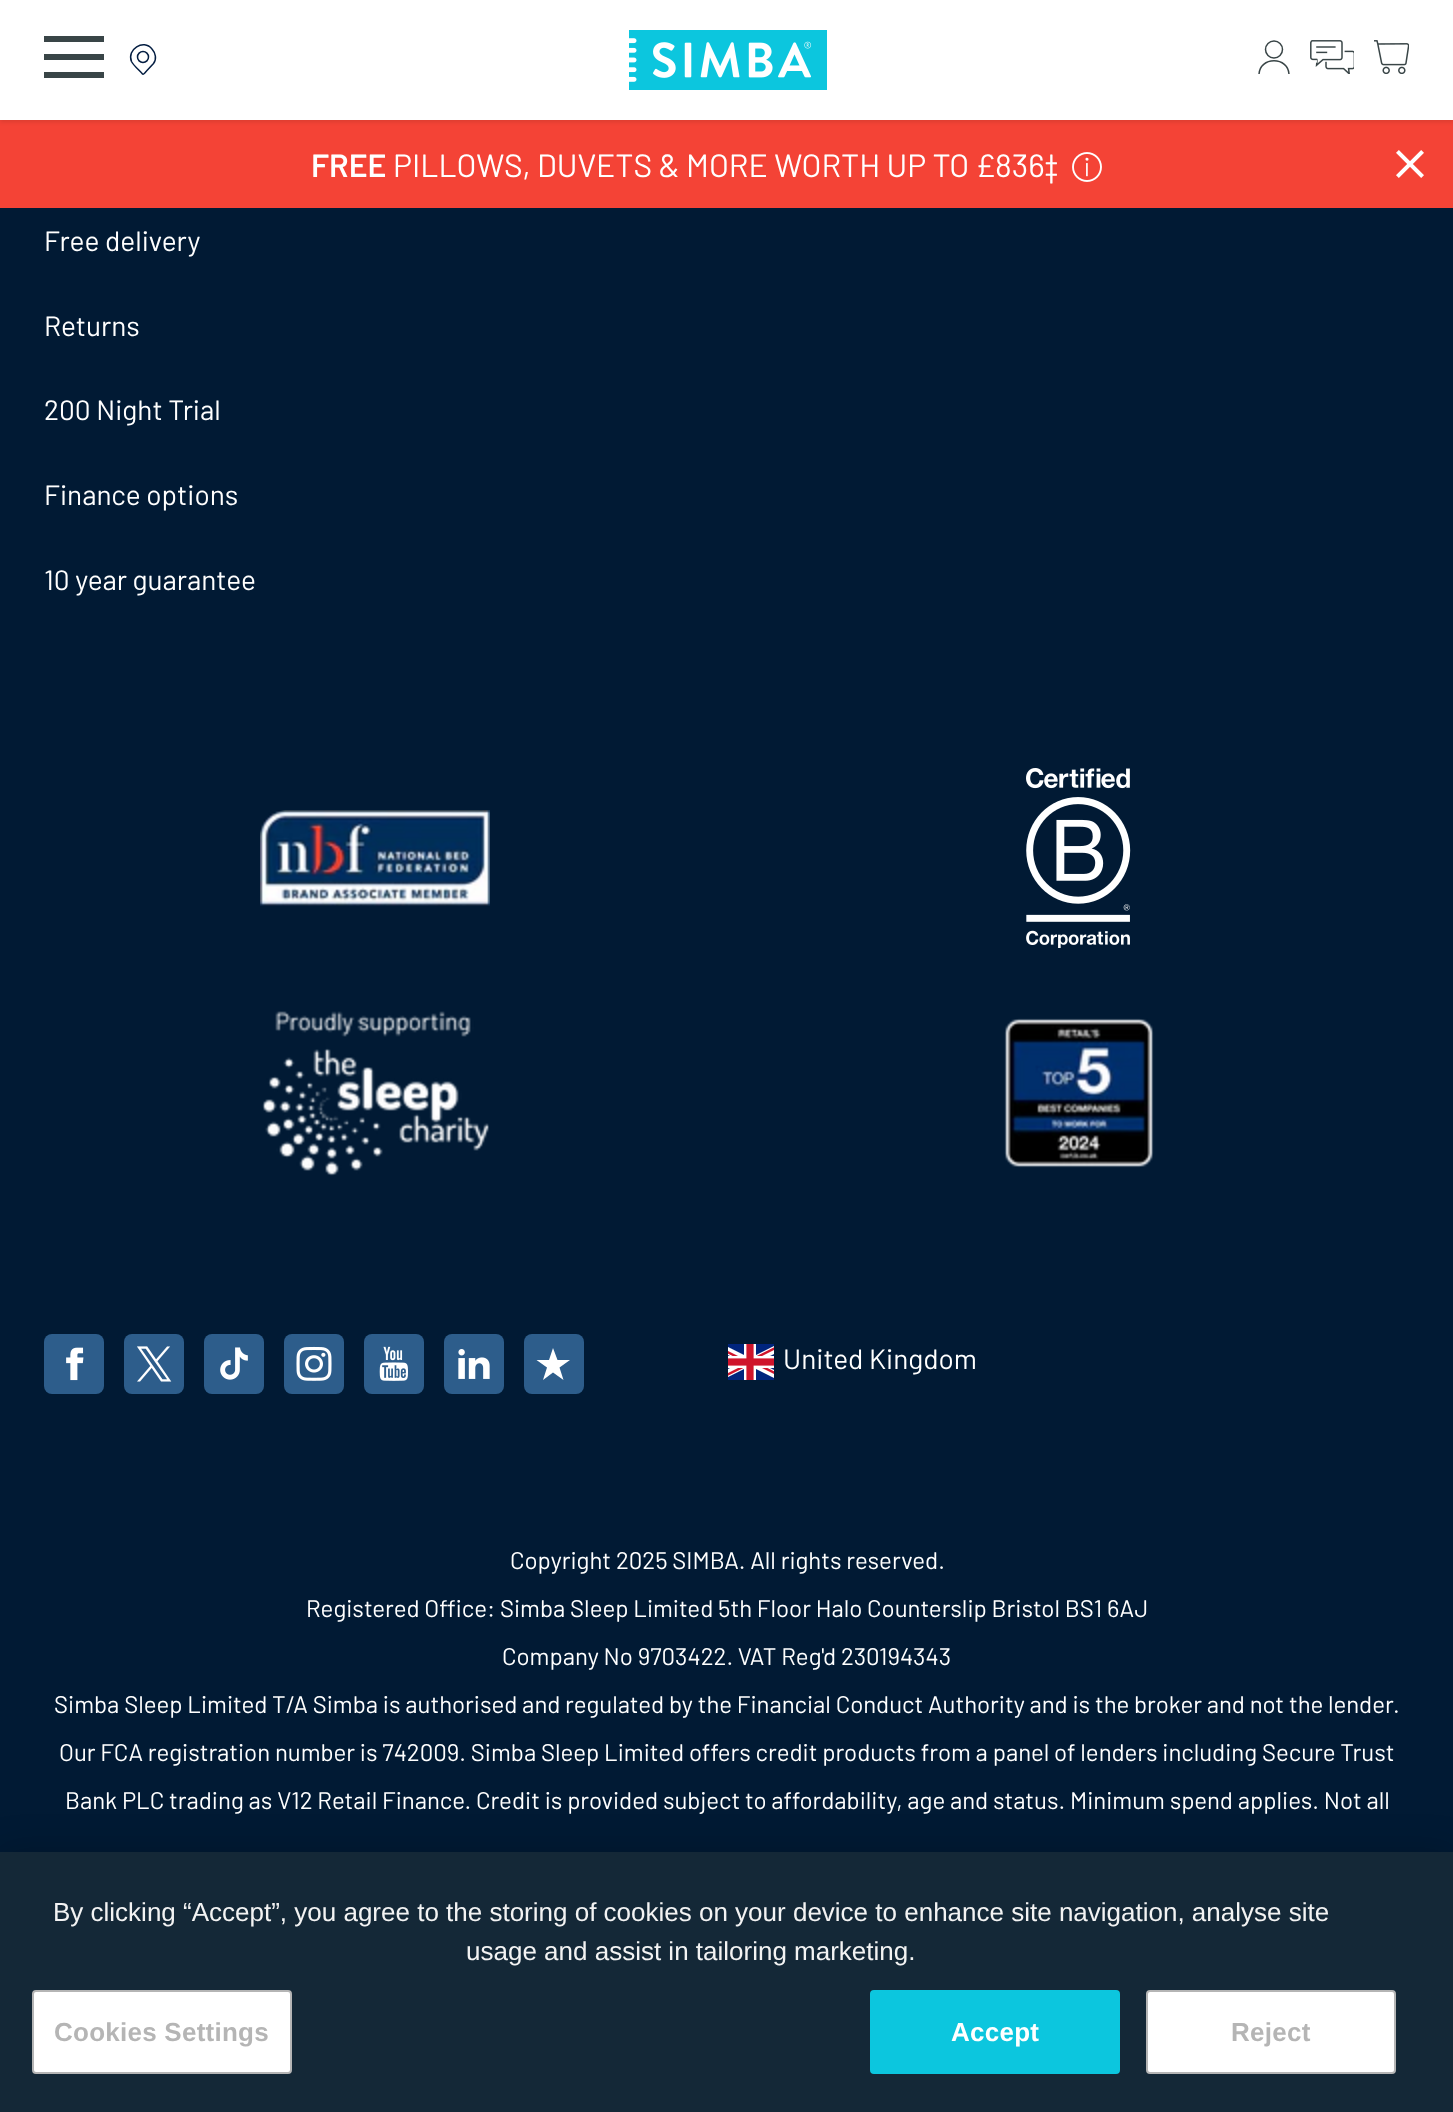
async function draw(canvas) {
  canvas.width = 1453;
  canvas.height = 2112;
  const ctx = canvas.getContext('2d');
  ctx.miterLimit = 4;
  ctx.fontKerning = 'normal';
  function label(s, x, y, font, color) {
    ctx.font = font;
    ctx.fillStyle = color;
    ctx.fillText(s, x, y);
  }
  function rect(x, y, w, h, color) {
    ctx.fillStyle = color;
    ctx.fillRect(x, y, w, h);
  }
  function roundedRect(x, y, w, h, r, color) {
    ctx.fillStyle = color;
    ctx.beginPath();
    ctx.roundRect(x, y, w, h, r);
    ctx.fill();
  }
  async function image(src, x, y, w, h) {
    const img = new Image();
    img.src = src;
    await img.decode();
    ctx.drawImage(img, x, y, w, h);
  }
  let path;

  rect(0, 0, 1453, 2112, '#011a34');
  rect(0, 120, 1453, 88, '#f44336');
  ctx.fillStyle = '#0000001a';
  ctx.filter = 'blur(2px)';
  ctx.beginPath();
  ctx.rect(0, 2, 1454, 120);
  ctx.fill();
  ctx.filter = 'none';
  rect(0, 0, 1453, 120, '#fff');
  rect(44, 36, 60, 6, '#394547');
  rect(44, 54, 60, 6, '#394547');
  rect(44, 72, 60, 6, '#394547');
  path = new Path2D('M142.5 74C139.5 70.5 133.5 65.5 131.5 61.5C126.5 49.5 143.5 38.5 152 49C155.5 53 157 59 153.5 63.5L146.5 71C146 71.5 143.5 75 142.5 74Z');
  ctx.strokeStyle = '#041e42';
  ctx.lineWidth = 1.5;
  ctx.stroke(path);
  ctx.beginPath();
  ctx.arc(143, 57, 5.5, 0, 2 * Math.PI);
  ctx.stroke();
  await image('assets/img1.png', 629, 30, 198, 60);
  ctx.beginPath();
  ctx.arc(1274, 49.5, 8.5, 0, 2 * Math.PI);
  ctx.strokeStyle = '#394547';
  ctx.stroke();
  ctx.save();
  ctx.beginPath();
  ctx.rect(1258, 40, 32, 34);
  ctx.clip();
  path = new Path2D('M1259 75C1259 56 1289 56 1289 75');
  ctx.lineCap = 'round';
  ctx.stroke(path);
  ctx.restore();
  await image('assets/img2.png', 1310, 40, 44, 34);
  await image('assets/img3.png', 1374, 40, 35, 34);
  label('FREE', 311, 177, '600 32px Barlow', '#fff');
  label('PILLOWS, DUVETS & MORE WORTH UP TO £836‡', 393, 177, '32px Barlow', '#fff');
  await image('assets/img4.png', 1072, 152, 30, 30);
  await image('assets/img5.png', 1396, 150, 28, 28);
  label('Free delivery', 44, 251, '28px Barlow', '#fff');
  label('Returns', 44, 336, '28px Barlow', '#fff');
  label('200 Night Trial', 44, 420, '28px Barlow', '#fff');
  label('Finance options', 44, 505, '28px Barlow', '#fff');
  label('10 year guarantee', 44, 590, '28px Barlow', '#fff');
  await image('assets/img6.png', 260, 810, 230, 96);
  await image('assets/img7.png', 1026, 768, 105, 180);
  await image('assets/img8.png', 262, 1011, 227, 165);
  await image('assets/img9.png', 1004, 1018, 150, 150);
  roundedRect(44, 1334, 60, 60, 8, '#2d5d8b');
  await image('assets/img10.png', 66, 1347, 18, 34);
  roundedRect(124, 1334, 60, 60, 8, '#2d5d8b');
  await image('assets/img11.png', 137, 1346, 35, 36);
  roundedRect(204, 1334, 60, 60, 8, '#2d5d8b');
  await image('assets/img12.png', 220, 1347, 28, 33);
  roundedRect(284, 1334, 60, 60, 8, '#2d5d8b');
  await image('assets/img13.png', 296, 1346, 36, 35);
  roundedRect(364, 1334, 60, 60, 8, '#2d5d8b');
  await image('assets/img14.png', 379, 1346, 29, 35);
  roundedRect(444, 1334, 60, 60, 8, '#2d5d8b');
  await image('assets/img15.png', 458, 1349, 32, 30);
  roundedRect(524, 1334, 60, 60, 8, '#2d5d8b');
  ctx.fillStyle = '#fff';
  path = new Path2D('M570 1360H557.5L553 1348L549 1360H536.5L547 1367.5L543 1380L553 1372.5L563.5 1380L559.5 1367.5Z');
  ctx.fill(path);
  await image('assets/img16.png', 728, 1344, 46, 36);
  label('United Kingdom', 783, 1369, '28px Barlow', '#fff');
  label('Copyright 2025 SIMBA. All rights reserved.', 510, 1569, '24px Barlow', '#fff');
  label('Registered Office: Simba Sleep Limited 5th Floor Halo Counterslip Bristol BS1 6AJ', 306, 1617, '24px Barlow', '#fff');
  label('Company No 9703422. VAT Reg\'d 230194343', 502, 1665, '24px Barlow', '#fff');
  label('Simba Sleep Limited T/A Simba is authorised and regulated by the Financial Conduct Authority and is the broker and not the lender.', 54, 1713, '24px Barlow', '#fff');
  label('Our FCA registration number is 742009. Simba Sleep Limited offers credit products from a panel of lenders including Secure Trust', 59, 1761, '24px Barlow', '#fff');
  label('Bank PLC trading as V12 Retail Finance. Credit is provided subject to affordability, age and status. Minimum spend applies. Not all', 65, 1809, '24px Barlow', '#fff');
  ctx.fillStyle = '#00000033';
  ctx.filter = 'blur(18px)';
  ctx.beginPath();
  ctx.rect(0, 1852, 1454, 260);
  ctx.fill();
  ctx.filter = 'none';
  rect(0, 1852, 1453, 260, '#142837');
  label('By clicking “Accept”, you agree to the storing of cookies on your device to enhance site navigation, analyse site', 53, 1921, '26px Liberation Sans', '#f3f3f3');
  label('usage and assist in tailoring marketing.', 466, 1960, '26px Liberation Sans', '#f3f3f3');
  ctx.fillStyle = '#fff';
  ctx.beginPath();
  ctx.roundRect(33, 1991, 258, 82, 3);
  ctx.fill();
  ctx.strokeStyle = '#b5b5b5';
  ctx.lineWidth = 2;
  ctx.stroke();
  ctx.letterSpacing = '0.25px';
  label('Cookies Settings', 54, 2041, 'bold 26px Liberation Sans', '#b5b5b5');
  ctx.fillStyle = '#0cc6de';
  ctx.beginPath();
  ctx.roundRect(871, 1991, 248, 82, 3);
  ctx.fill();
  ctx.strokeStyle = '#0cc6de';
  ctx.stroke();
  label('Accept', 951, 2041, 'bold 26px Liberation Sans', '#fff');
  ctx.beginPath();
  ctx.roundRect(1147, 1991, 248, 82, 3);
  ctx.fill();
  ctx.strokeStyle = '#b5b5b5';
  ctx.stroke();
  label('Reject', 1231, 2041, 'bold 26px Liberation Sans', '#b5b5b5');
}

draw(document.querySelector('canvas'));
